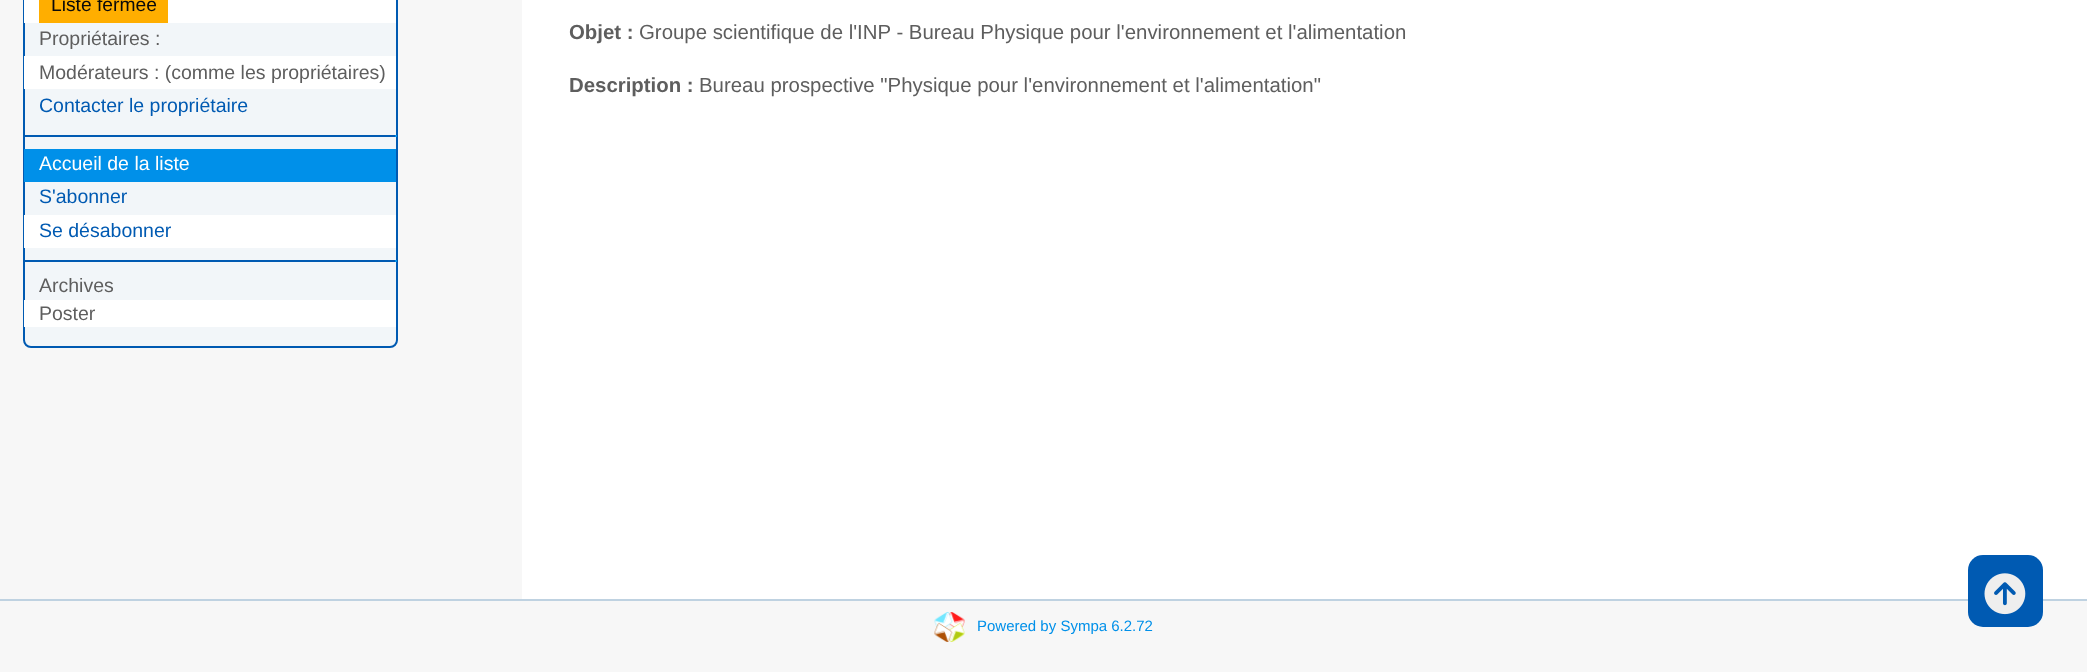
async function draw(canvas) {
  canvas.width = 2087;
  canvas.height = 672;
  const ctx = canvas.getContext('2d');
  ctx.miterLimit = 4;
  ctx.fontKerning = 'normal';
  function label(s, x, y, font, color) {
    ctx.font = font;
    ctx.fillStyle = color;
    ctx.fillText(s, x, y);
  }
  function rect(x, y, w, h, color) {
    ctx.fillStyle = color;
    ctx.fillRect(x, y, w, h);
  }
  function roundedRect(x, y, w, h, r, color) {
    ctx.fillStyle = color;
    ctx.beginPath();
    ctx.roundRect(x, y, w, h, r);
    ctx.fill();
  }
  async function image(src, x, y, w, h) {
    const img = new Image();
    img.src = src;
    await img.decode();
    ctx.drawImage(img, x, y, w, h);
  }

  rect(0, 0, 2087, 672, '#f7f7f7');
  ctx.fillStyle = '#f2f6f9';
  ctx.beginPath();
  ctx.roundRect(24, -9, 373, 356, 7);
  ctx.fill();
  ctx.strokeStyle = '#005ab2';
  ctx.lineWidth = 2;
  ctx.stroke();
  rect(24, 0, 372, 23, '#fff');
  rect(39, 0, 129, 23, '#ffae00');
  label('Liste fermée', 51, 11, '19.25px Liberation Sans', '#0a0a0a');
  label('Propriétaires :', 39, 45, '19.5px Liberation Sans', '#5e5e5e');
  rect(24, 56, 372, 33, '#fff');
  label('Modérateurs : (comme les propriétaires)', 39, 79, '19.5px Liberation Sans', '#5e5e5e');
  label('Contacter le propriétaire', 39, 112, '19.5px Liberation Sans', '#005ab2');
  rect(24, 135, 372, 2, '#005ab2');
  rect(395, 135, 2, 2, '#0090e9');
  rect(24, 149, 372, 33, '#0090e9');
  label('Accueil de la liste', 39, 170, '19.5px Liberation Sans', '#fefefe');
  label('S\'abonner', 39, 203, '19.5px Liberation Sans', '#005ab2');
  rect(24, 215, 372, 33, '#fff');
  label('Se désabonner', 39, 237, '19.5px Liberation Sans', '#005ab2');
  rect(24, 260, 372, 2, '#005ab2');
  rect(395, 260, 2, 2, '#0090e9');
  label('Archives', 39, 292, '19.5px Liberation Sans', '#5e5e5e');
  rect(24, 300, 372, 27, '#fff');
  label('Poster', 39, 320, '19.5px Liberation Sans', '#5e5e5e');
  rect(522, 0, 1565, 599, '#fff');
  label('Objet :', 569, 39, 'bold 20.4px Liberation Sans', '#5e5e5e');
  label('Groupe scientifique de l\'INP - Bureau Physique pour l\'environnement et l\'alimentation', 639, 39, '20.4px Liberation Sans', '#5e5e5e');
  label('Description :', 569, 92, 'bold 20.4px Liberation Sans', '#5e5e5e');
  label('Bureau prospective "Physique pour l\'environnement et l\'alimentation"', 699, 92, '20.4px Liberation Sans', '#5e5e5e');
  rect(0, 599, 2087, 2, '#bfd2e1');
  await image('assets/img1.png', 934, 612, 31, 30);
  label('Powered by Sympa 6.2.72', 977, 631, '15px Liberation Sans', '#0090e9');
  roundedRect(1968, 555, 75, 72, 15, '#005ab2');
  await image('assets/img2.png', 1984, 573, 42, 42);
}

draw(document.querySelector('canvas'));
